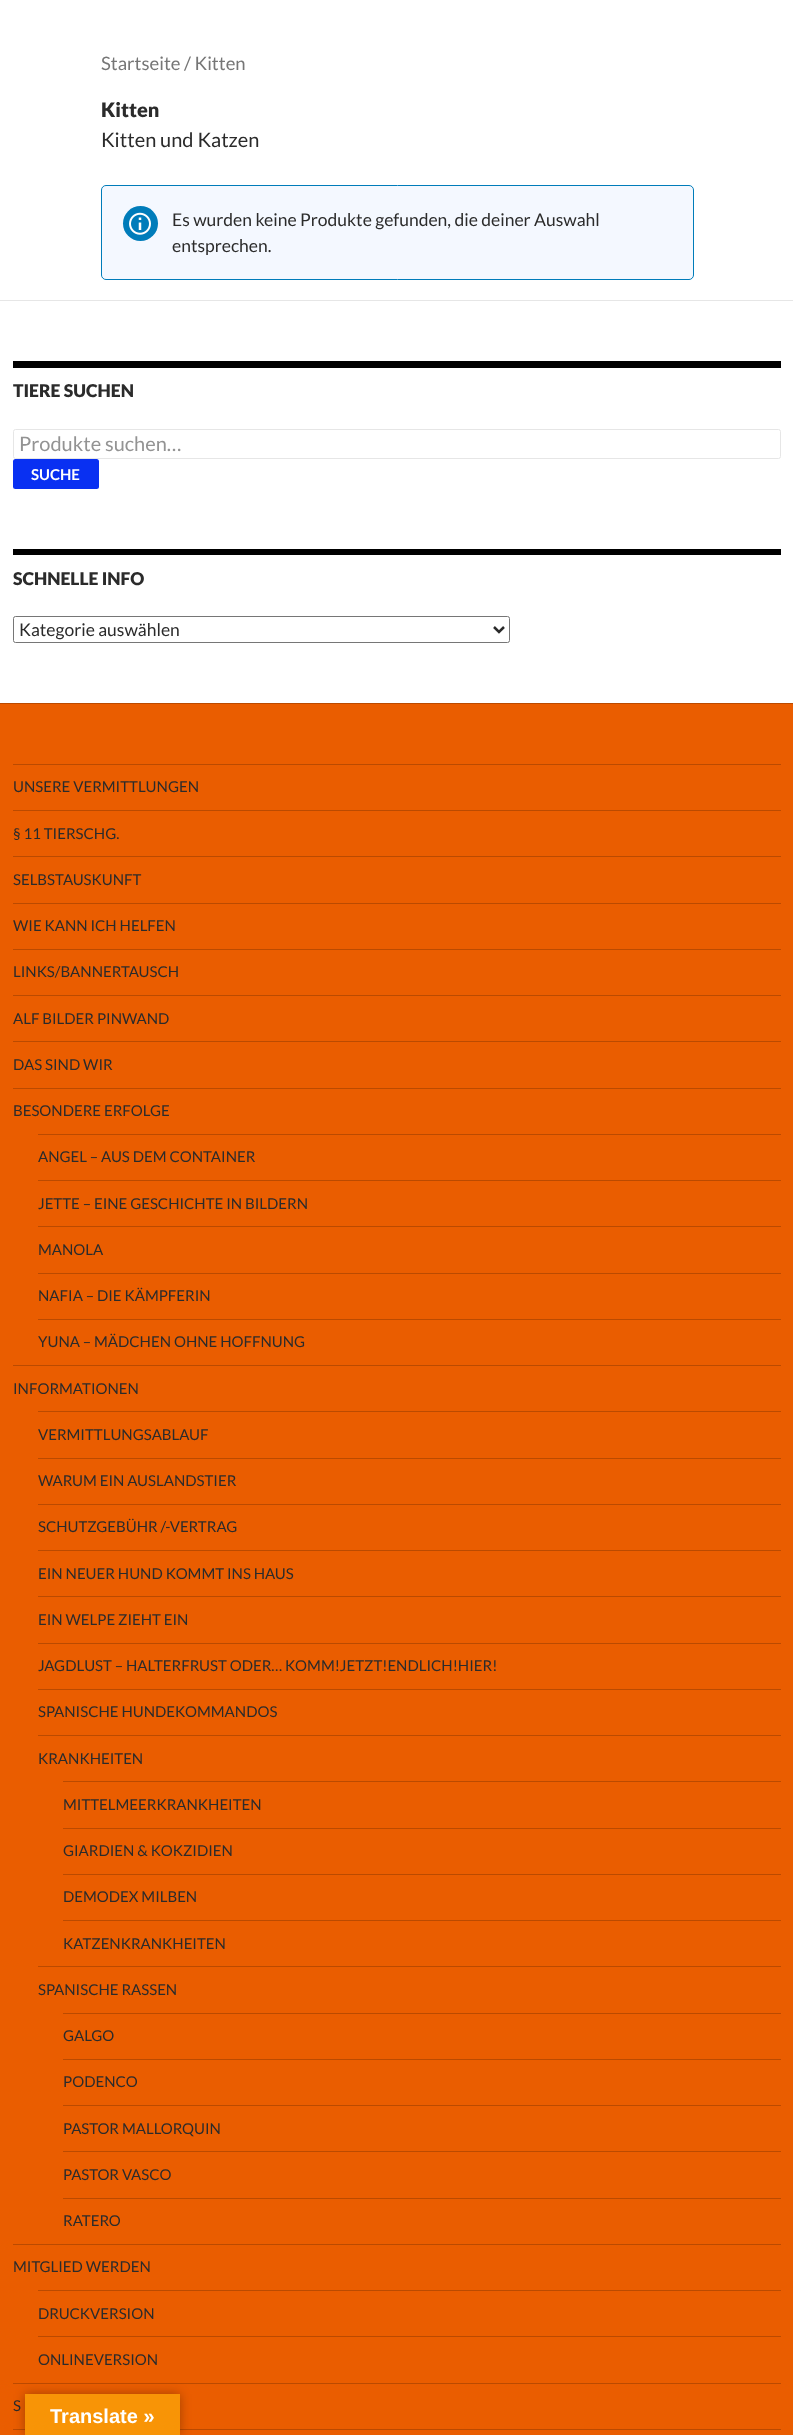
async function draw(canvas) {
  canvas.width = 793;
  canvas.height = 2435;
  const ctx = canvas.getContext('2d');
  ctx.miterLimit = 4;
  ctx.fontKerning = 'normal';
  function label(s, x, y, font, color) {
    ctx.font = font;
    ctx.fillStyle = color;
    ctx.fillText(s, x, y);
  }
  function rect(x, y, w, h, color) {
    ctx.fillStyle = color;
    ctx.fillRect(x, y, w, h);
  }
  function roundedRect(x, y, w, h, r, color) {
    ctx.fillStyle = color;
    ctx.beginPath();
    ctx.roundRect(x, y, w, h, r);
    ctx.fill();
  }
  async function image(src, x, y, w, h) {
    const img = new Image();
    img.src = src;
    await img.decode();
    ctx.drawImage(img, x, y, w, h);
  }
  let path;

  rect(0, 0, 793, 2435, '#fff');
  label('Startseite / Kitten', 101, 70, '18.5px Lato', '#767676');
  label('Kitten', 101, 117, '900 20px Lato', '#2b2b2b');
  label('Kitten und Katzen', 101, 147, '20px Lato', '#2b2b2b');
  ctx.fillStyle = '#f4f8ff';
  ctx.beginPath();
  ctx.roundRect(101.5, 185.5, 592, 94, 4.5);
  ctx.fill();
  ctx.strokeStyle = '#007cba';
  ctx.stroke();
  ctx.fillStyle = '#007cba';
  ctx.beginPath();
  ctx.arc(140.5, 223.5, 17.5, 0, 2 * Math.PI);
  ctx.fill();
  await image('assets/img1.png', 129, 212, 22, 23);
  label('Es wurden keine Produkte gefunden, die deiner Auswahl', 172, 226, '17.5px Lato', '#2b2b2b');
  label('entsprechen.', 172, 252, '17.5px Lato', '#2b2b2b');
  rect(0, 300, 793, 1, '#e6e6e6');
  rect(13, 361, 768, 7, '#000');
  label('TIERE SUCHEN', 13, 397, '900 17.5px Lato', '#2b2b2b');
  ctx.beginPath();
  ctx.roundRect(13.5, 429.5, 767, 29, 2);
  ctx.strokeStyle = '#e6e6e6';
  ctx.stroke();
  label('Produkte suchen…', 19, 451, '20px Lato', '#939393');
  roundedRect(13, 459, 86, 30, 2.5, '#0930f2');
  label('SUCHE', 31, 480, 'bold 15px Lato', '#fff');
  rect(13, 549, 768, 6, '#000');
  label('SCHNELLE INFO', 13, 585, '900 17.5px Lato', '#2b2b2b');
  ctx.beginPath();
  ctx.roundRect(13.5, 616.5, 496, 26, 2);
  ctx.strokeStyle = '#767676';
  ctx.stroke();
  path = new Path2D('M494 627L499 632L504 627');
  ctx.strokeStyle = '#2b2b2b';
  ctx.lineWidth = 2.5;
  ctx.stroke(path);
  label('Kategorie auswählen', 19, 636, '17.5px Lato', '#2b2b2b');
  rect(0, 704, 793, 1731, '#ea5d00');
  rect(0, 703, 793, 1, '#bb4a00');
  rect(13, 764, 768, 1, '#bb4a00');
  label('UNSERE VERMITTLUNGEN', 13, 792, '15px Lato', '#2b2b2b');
  rect(13, 810, 768, 1, '#bb4a00');
  label('§ 11 TIERSCHG.', 13, 839, '15px Lato', '#2b2b2b');
  rect(13, 856, 768, 1, '#bb4a00');
  label('SELBSTAUSKUNFT', 13, 885, '15px Lato', '#2b2b2b');
  rect(13, 903, 768, 1, '#bb4a00');
  label('WIE KANN ICH HELFEN', 13, 931, '15px Lato', '#2b2b2b');
  rect(13, 949, 768, 1, '#bb4a00');
  label('LINKS/BANNERTAUSCH', 13, 977, '15px Lato', '#2b2b2b');
  rect(13, 995, 768, 1, '#bb4a00');
  label('ALF BILDER PINWAND', 13, 1024, '15px Lato', '#2b2b2b');
  rect(13, 1041, 768, 1, '#bb4a00');
  label('DAS SIND WIR', 13, 1070, '15px Lato', '#2b2b2b');
  rect(13, 1088, 768, 1, '#bb4a00');
  label('BESONDERE ERFOLGE', 13, 1116, '15px Lato', '#2b2b2b');
  rect(38, 1134, 743, 1, '#bb4a00');
  label('ANGEL – AUS DEM CONTAINER', 38, 1162, '15px Lato', '#2b2b2b');
  rect(38, 1180, 743, 1, '#bb4a00');
  label('JETTE – EINE GESCHICHTE IN BILDERN', 38, 1209, '15px Lato', '#2b2b2b');
  rect(38, 1226, 743, 1, '#bb4a00');
  label('MANOLA', 38, 1255, '15px Lato', '#2b2b2b');
  rect(38, 1273, 743, 1, '#bb4a00');
  label('NAFIA – DIE KÄMPFERIN', 38, 1301, '15px Lato', '#2b2b2b');
  rect(38, 1319, 743, 1, '#bb4a00');
  label('YUNA – MÄDCHEN OHNE HOFFNUNG', 38, 1347, '15px Lato', '#2b2b2b');
  rect(13, 1365, 768, 1, '#bb4a00');
  label('INFORMATIONEN', 13, 1394, '15px Lato', '#2b2b2b');
  rect(38, 1411, 743, 1, '#bb4a00');
  label('VERMITTLUNGSABLAUF', 38, 1440, '15px Lato', '#2b2b2b');
  rect(38, 1458, 743, 1, '#bb4a00');
  label('WARUM EIN AUSLANDSTIER', 38, 1486, '15px Lato', '#2b2b2b');
  rect(38, 1504, 743, 1, '#bb4a00');
  label('SCHUTZGEBÜHR /-VERTRAG', 38, 1532, '15px Lato', '#2b2b2b');
  rect(38, 1550, 743, 1, '#bb4a00');
  label('EIN NEUER HUND KOMMT INS HAUS', 38, 1579, '15px Lato', '#2b2b2b');
  rect(38, 1596, 743, 1, '#bb4a00');
  label('EIN WELPE ZIEHT EIN', 38, 1625, '15px Lato', '#2b2b2b');
  rect(38, 1643, 743, 1, '#bb4a00');
  label('JAGDLUST – HALTERFRUST ODER… KOMM!JETZT!ENDLICH!HIER!', 38, 1671, '15px Lato', '#2b2b2b');
  rect(38, 1689, 743, 1, '#bb4a00');
  label('SPANISCHE HUNDEKOMMANDOS', 38, 1717, '15px Lato', '#2b2b2b');
  rect(38, 1735, 743, 1, '#bb4a00');
  label('KRANKHEITEN', 38, 1764, '15px Lato', '#2b2b2b');
  rect(63, 1781, 718, 1, '#bb4a00');
  label('MITTELMEERKRANKHEITEN', 63, 1810, '15px Lato', '#2b2b2b');
  rect(63, 1828, 718, 1, '#bb4a00');
  label('GIARDIEN & KOKZIDIEN', 63, 1856, '15px Lato', '#2b2b2b');
  rect(63, 1874, 718, 1, '#bb4a00');
  label('DEMODEX MILBEN', 63, 1902, '15px Lato', '#2b2b2b');
  rect(63, 1920, 718, 1, '#bb4a00');
  label('KATZENKRANKHEITEN', 63, 1949, '15px Lato', '#2b2b2b');
  rect(38, 1966, 743, 1, '#bb4a00');
  label('SPANISCHE RASSEN', 38, 1995, '15px Lato', '#2b2b2b');
  rect(63, 2013, 718, 1, '#bb4a00');
  label('GALGO', 63, 2041, '15px Lato', '#2b2b2b');
  rect(63, 2059, 718, 1, '#bb4a00');
  label('PODENCO', 63, 2087, '15px Lato', '#2b2b2b');
  rect(63, 2105, 718, 1, '#bb4a00');
  label('PASTOR MALLORQUIN', 63, 2134, '15px Lato', '#2b2b2b');
  rect(63, 2151, 718, 1, '#bb4a00');
  label('PASTOR VASCO', 63, 2180, '15px Lato', '#2b2b2b');
  rect(63, 2198, 718, 1, '#bb4a00');
  label('RATERO', 63, 2226, '15px Lato', '#2b2b2b');
  rect(13, 2244, 768, 1, '#bb4a00');
  label('MITGLIED WERDEN', 13, 2272, '15px Lato', '#2b2b2b');
  rect(38, 2290, 743, 1, '#bb4a00');
  label('DRUCKVERSION', 38, 2319, '15px Lato', '#2b2b2b');
  rect(38, 2336, 743, 1, '#bb4a00');
  label('ONLINEVERSION', 38, 2365, '15px Lato', '#2b2b2b');
  rect(13, 2383, 768, 1, '#bb4a00');
  label('S', 13, 2411, '15px Lato', '#2b2b2b');
  rect(13, 2429, 768, 1, '#bb4a00');
  ctx.fillStyle = '#0000004d';
  ctx.filter = 'blur(5.5px)';
  ctx.beginPath();
  ctx.rect(25, 2394, 155, 41);
  ctx.fill();
  ctx.filter = 'none';
  rect(25, 2394, 155, 41, '#f89406');
  label('Translate »', 50, 2423, 'bold 20px Liberation Sans', '#fff');
}

draw(document.querySelector('canvas'));
